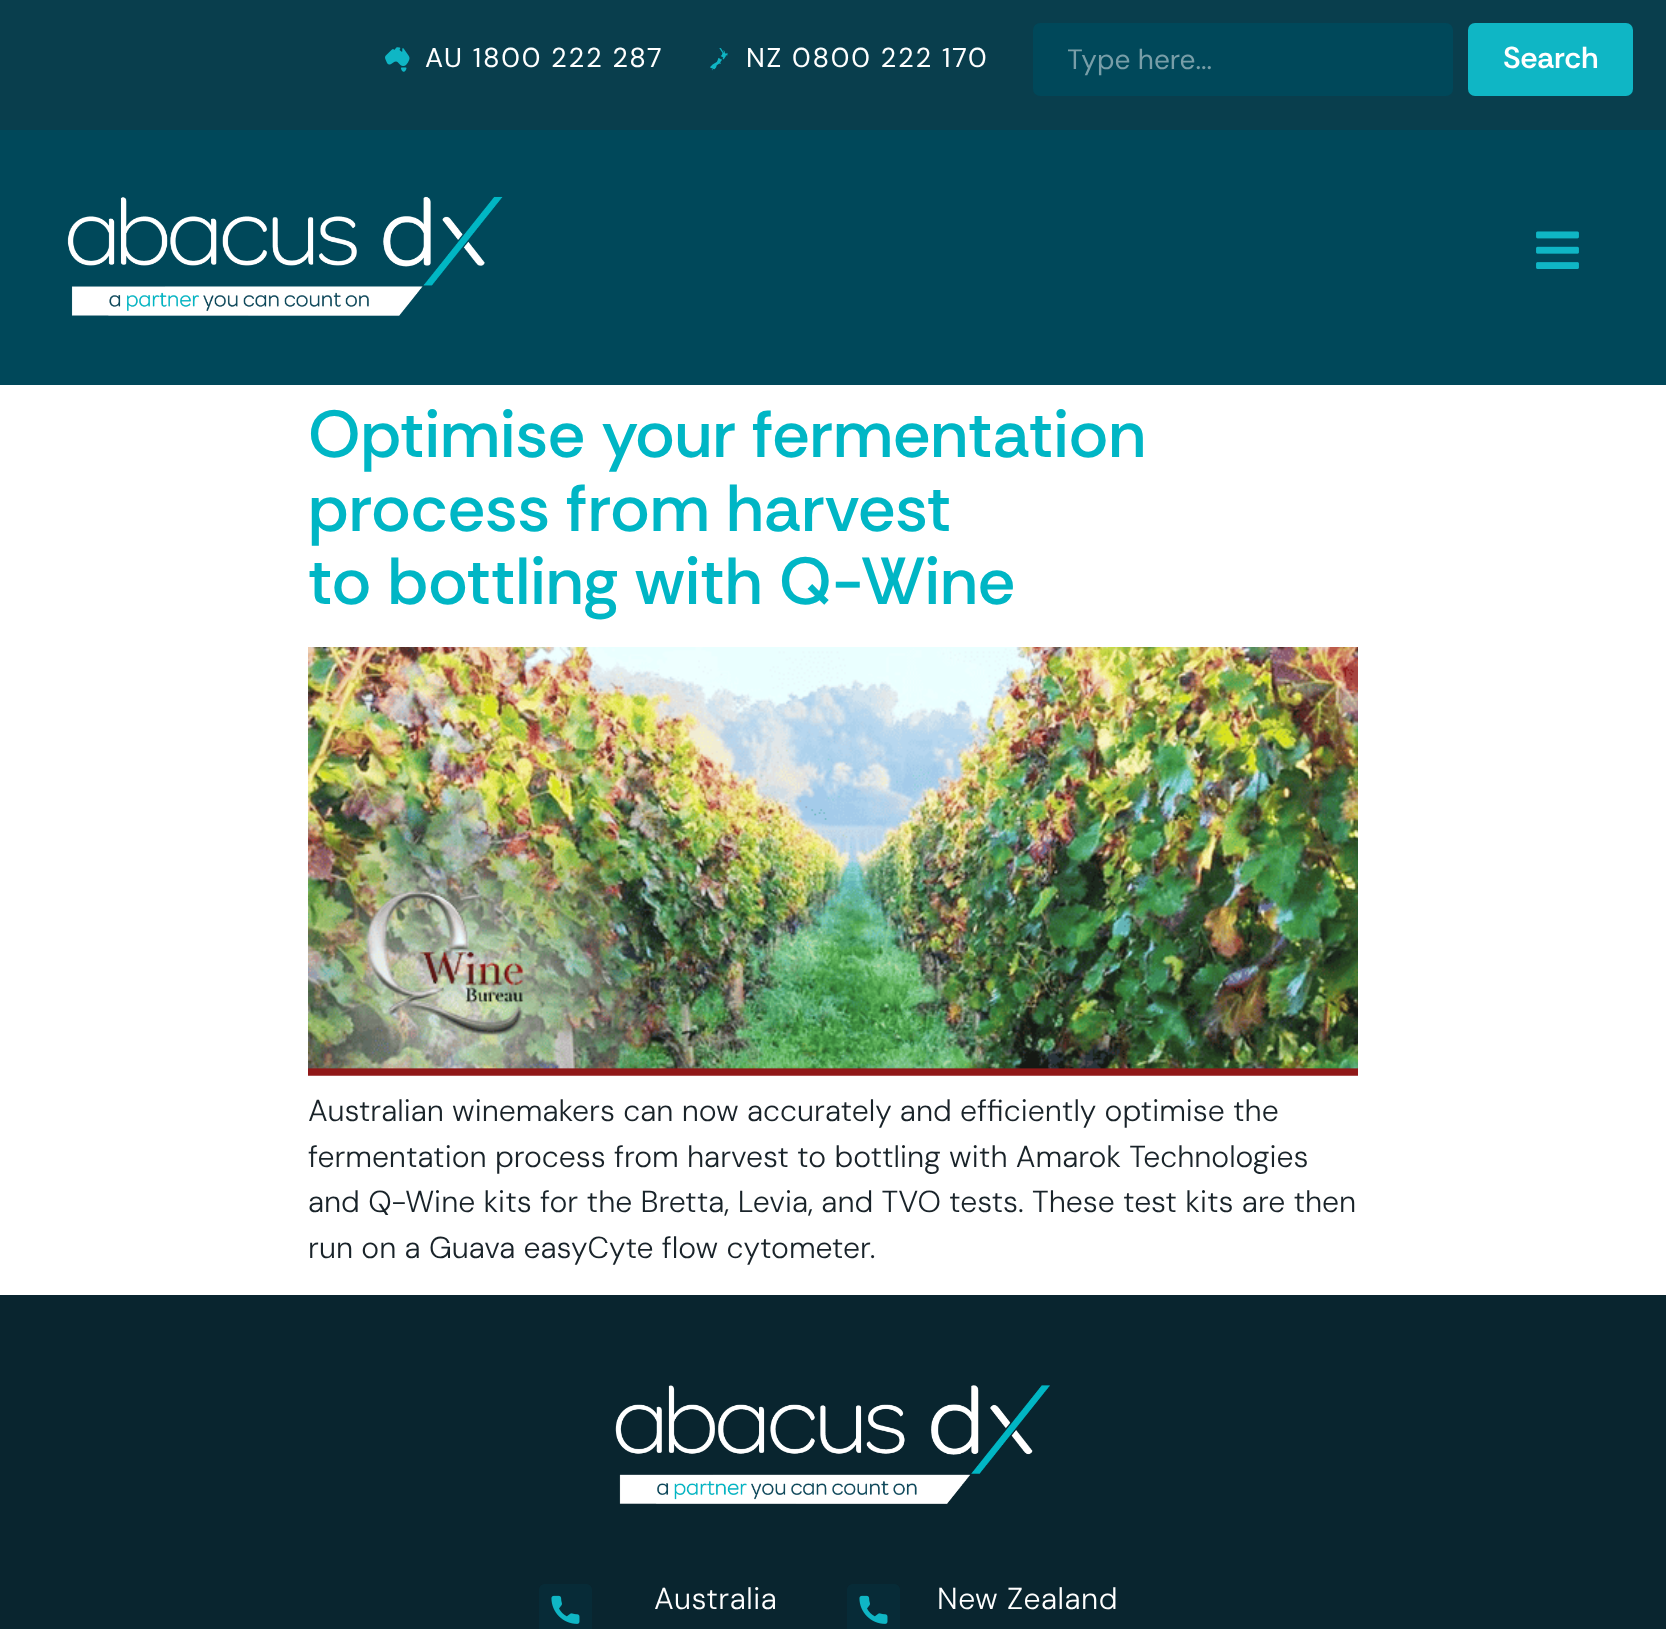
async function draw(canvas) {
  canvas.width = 1666;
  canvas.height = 1629;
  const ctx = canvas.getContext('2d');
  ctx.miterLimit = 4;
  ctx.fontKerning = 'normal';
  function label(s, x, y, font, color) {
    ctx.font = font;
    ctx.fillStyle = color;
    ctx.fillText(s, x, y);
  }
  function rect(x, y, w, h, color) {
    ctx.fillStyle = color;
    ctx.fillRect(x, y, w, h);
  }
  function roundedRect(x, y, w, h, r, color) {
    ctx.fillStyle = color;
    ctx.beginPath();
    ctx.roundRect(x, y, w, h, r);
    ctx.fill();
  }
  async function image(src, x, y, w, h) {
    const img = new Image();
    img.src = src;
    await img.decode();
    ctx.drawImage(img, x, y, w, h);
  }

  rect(0, 0, 1666, 1629, '#fff');
  rect(0, 130, 1666, 255, '#00485a');
  rect(0, 0, 1666, 130, '#093e4d');
  await image('assets/img1.png', 385, 47, 25, 25);
  ctx.letterSpacing = '1.75px';
  label('AU 1800 222 287', 425, 67, '27.25px DM Sans', '#fff');
  await image('assets/img2.png', 710, 48, 18, 23);
  label('NZ 0800 222 170', 746, 67, '27.25px DM Sans', '#fff');
  roundedRect(1033, 23, 420, 73, 7, '#00485a');
  ctx.save();
  ctx.beginPath();
  ctx.rect(1068, 40, 329, 37);
  ctx.clip();
  ctx.letterSpacing = '0px';
  label('Type here...', 1067, 69, '28px DM Sans', '#789ea8');
  ctx.restore();
  roundedRect(1468, 23, 165, 73, 7, '#0fb6c5');
  ctx.letterSpacing = '0px';
  label('Search', 1503, 68, '600 30.25px Rethink Sans', '#fff');
  await image('assets/img3.png', 67, 196, 436, 120);
  await image('assets/img4.png', 1536, 231, 43, 38);
  label('Optimise your fermentation', 308, 457, '500 66.5px Rethink Sans', '#00b6c5');
  label('process from harvest', 308, 531, '500 66.5px Rethink Sans', '#00b6c5');
  label('to bottling with Q-Wine', 308, 604, '500 66.5px Rethink Sans', '#00b6c5');
  await image('assets/img5.png', 308, 647, 1050, 429);
  label('Australian winemakers can now accurately and efficiently optimise the', 308, 1121, '300 30.25px DM Sans', '#192329');
  label('fermentation process from harvest to bottling with Amarok Technologies', 308, 1167, '300 30.25px DM Sans', '#192329');
  label('and Q-Wine kits for the Bretta, Levia, and TVO tests. These test kits are then', 308, 1212, '300 30.25px DM Sans', '#192329');
  label('run on a Guava easyCyte flow cytometer.', 308, 1258, '300 30.25px DM Sans', '#192329');
  rect(0, 1295, 1666, 334, '#09252f');
  await image('assets/img6.png', 615, 1385, 435, 119);
  await image('assets/img7.png', 539, 1584, 53, 45);
  ctx.letterSpacing = '0.5px';
  label('Australia', 654, 1609, '300 30.25px DM Sans', '#fff');
  await image('assets/img7.png', 847, 1584, 53, 45);
  label('New Zealand', 937, 1609, '300 30.25px DM Sans', '#fff');
}

draw(document.querySelector('canvas'));
